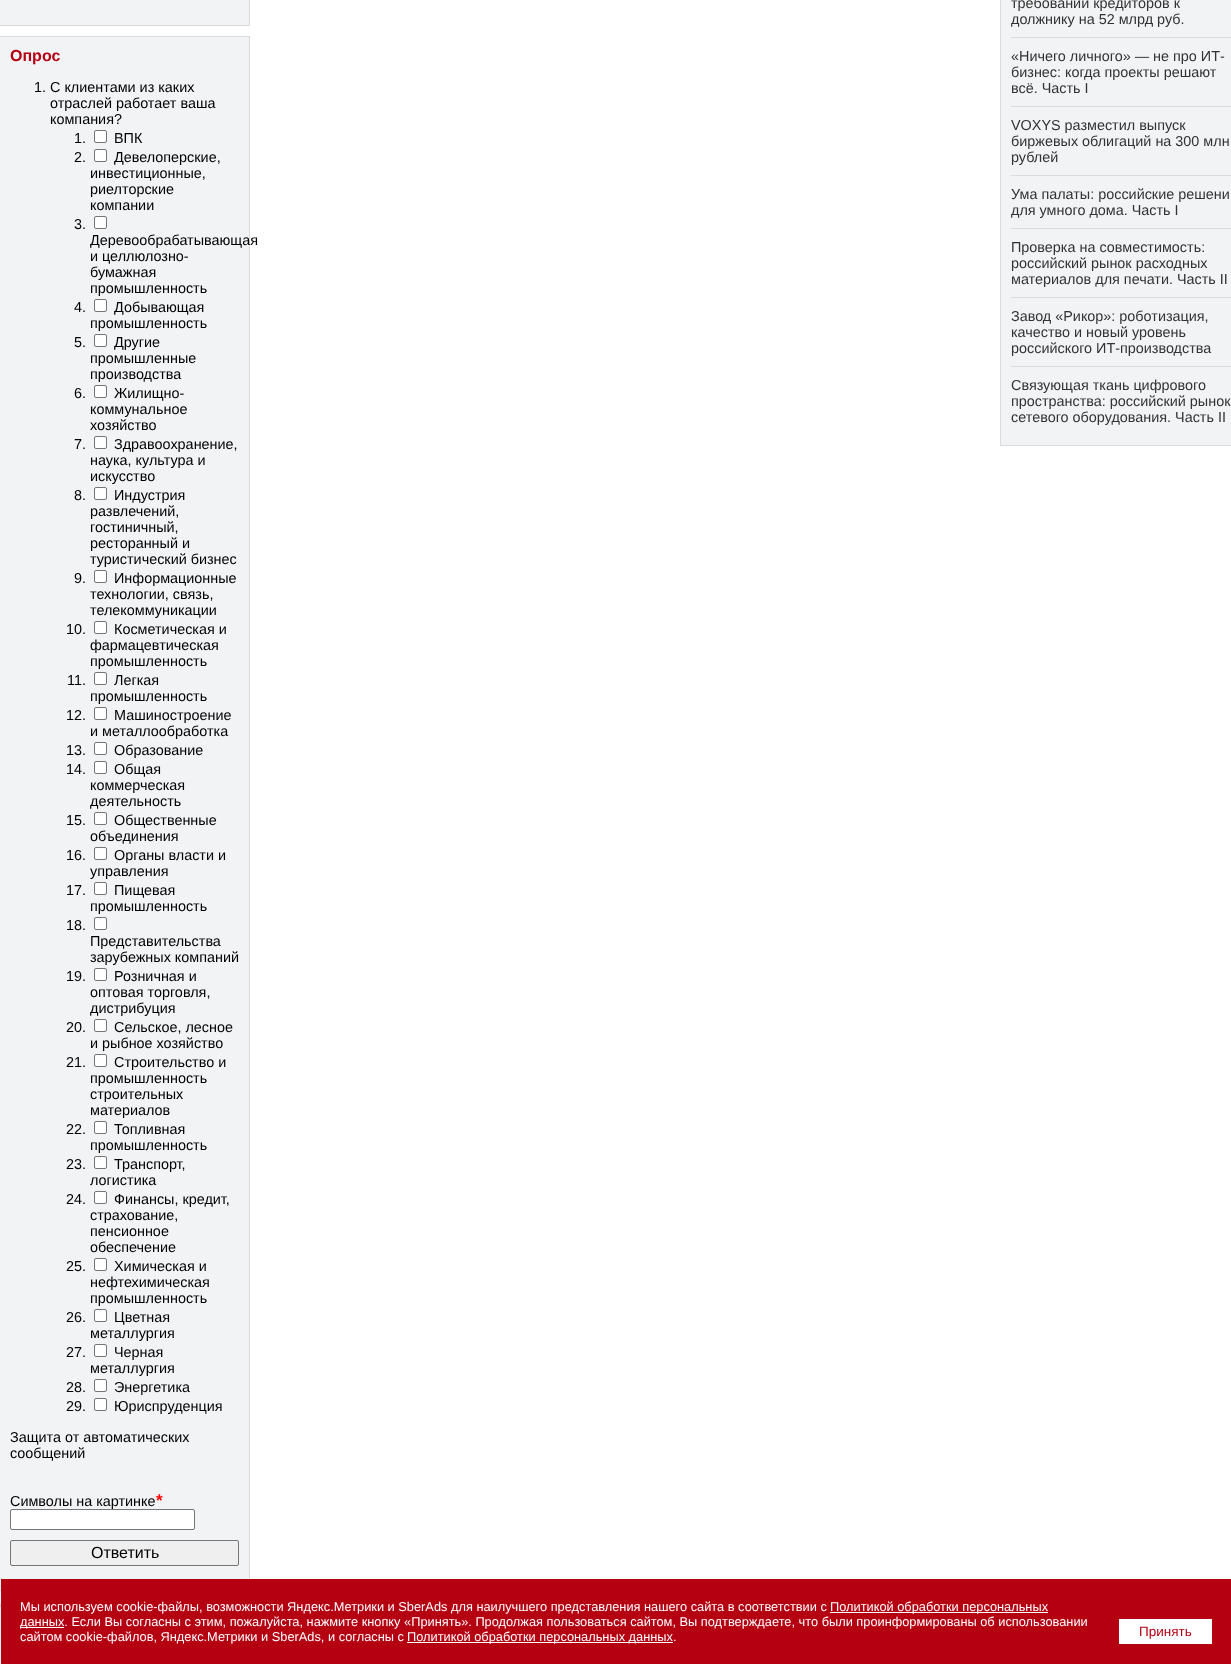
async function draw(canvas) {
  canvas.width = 1231;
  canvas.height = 1664;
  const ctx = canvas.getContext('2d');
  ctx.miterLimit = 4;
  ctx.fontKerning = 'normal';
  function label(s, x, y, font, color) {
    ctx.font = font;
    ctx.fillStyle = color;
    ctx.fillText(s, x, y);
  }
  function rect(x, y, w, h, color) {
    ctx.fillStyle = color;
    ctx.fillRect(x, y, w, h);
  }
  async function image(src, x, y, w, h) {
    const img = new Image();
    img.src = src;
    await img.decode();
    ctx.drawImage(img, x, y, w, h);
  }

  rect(0, 0, 1231, 1664, '#fff');
  rect(0, 0, 249, 25, '#f2f3f5');
  rect(249, 0, 1, 26, '#dadbdd');
  rect(0, 25, 250, 1, '#dadbdd');
  rect(0, 37, 249, 1553, '#f2f3f5');
  rect(0, 36, 250, 1, '#dadbdd');
  rect(249, 36, 1, 1543, '#dadbdd');
  rect(0, 1590, 1, 1, '#dadbdd');
  label('Опрос', 10, 61, 'bold 16px Liberation Sans', '#b50012');
  label('1. С клиентами из каких', 34, 92, '14.4px Liberation Sans', '#000');
  label('отраслей работает ваша', 50, 108, '14.4px Liberation Sans', '#000');
  label('компания?', 50, 124, '14.4px Liberation Sans', '#000');
  label('1.', 74, 143, '14.4px Liberation Sans', '#000');
  ctx.fillStyle = '#fff';
  ctx.beginPath();
  ctx.roundRect(94.5, 130.5, 12, 12, 1.5);
  ctx.fill();
  ctx.strokeStyle = '#767676';
  ctx.stroke();
  label('ВПК', 114, 143, '14.4px Liberation Sans', '#000');
  label('2.', 74, 162, '14.4px Liberation Sans', '#000');
  ctx.fillStyle = '#fff';
  ctx.beginPath();
  ctx.roundRect(94.5, 149.5, 12, 12, 1.5);
  ctx.fill();
  ctx.stroke();
  label('Девелоперские,', 114, 162, '14.4px Liberation Sans', '#000');
  label('инвестиционные,', 90, 178, '14.4px Liberation Sans', '#000');
  label('риелторские', 90, 194, '14.4px Liberation Sans', '#000');
  label('компании', 90, 210, '14.4px Liberation Sans', '#000');
  label('3.', 74, 229, '14.4px Liberation Sans', '#000');
  ctx.fillStyle = '#fff';
  ctx.beginPath();
  ctx.roundRect(94.5, 216.5, 12, 12, 1.5);
  ctx.fill();
  ctx.stroke();
  label('Деревообрабатывающая', 90, 245, '14.4px Liberation Sans', '#000');
  label('и целлюлозно-', 90, 261, '14.4px Liberation Sans', '#000');
  label('бумажная', 90, 277, '14.4px Liberation Sans', '#000');
  label('промышленность', 90, 293, '14.4px Liberation Sans', '#000');
  label('4.', 74, 312, '14.4px Liberation Sans', '#000');
  ctx.fillStyle = '#fff';
  ctx.beginPath();
  ctx.roundRect(94.5, 299.5, 12, 12, 1.5);
  ctx.fill();
  ctx.stroke();
  label('Добывающая', 114, 312, '14.4px Liberation Sans', '#000');
  label('промышленность', 90, 328, '14.4px Liberation Sans', '#000');
  label('5.', 74, 347, '14.4px Liberation Sans', '#000');
  ctx.fillStyle = '#fff';
  ctx.beginPath();
  ctx.roundRect(94.5, 334.5, 12, 12, 1.5);
  ctx.fill();
  ctx.stroke();
  label('Другие', 114, 347, '14.4px Liberation Sans', '#000');
  label('промышленные', 90, 363, '14.4px Liberation Sans', '#000');
  label('производства', 90, 379, '14.4px Liberation Sans', '#000');
  label('6.', 74, 398, '14.4px Liberation Sans', '#000');
  ctx.fillStyle = '#fff';
  ctx.beginPath();
  ctx.roundRect(94.5, 385.5, 12, 12, 1.5);
  ctx.fill();
  ctx.stroke();
  label('Жилищно-', 114, 398, '14.4px Liberation Sans', '#000');
  label('коммунальное', 90, 414, '14.4px Liberation Sans', '#000');
  label('хозяйство', 90, 430, '14.4px Liberation Sans', '#000');
  label('7.', 74, 449, '14.4px Liberation Sans', '#000');
  ctx.fillStyle = '#fff';
  ctx.beginPath();
  ctx.roundRect(94.5, 436.5, 12, 12, 1.5);
  ctx.fill();
  ctx.stroke();
  label('Здравоохранение,', 114, 449, '14.4px Liberation Sans', '#000');
  label('наука, культура и', 90, 465, '14.4px Liberation Sans', '#000');
  label('искусство', 90, 481, '14.4px Liberation Sans', '#000');
  label('8.', 74, 500, '14.4px Liberation Sans', '#000');
  ctx.fillStyle = '#fff';
  ctx.beginPath();
  ctx.roundRect(94.5, 487.5, 12, 12, 1.5);
  ctx.fill();
  ctx.stroke();
  label('Индустрия', 114, 500, '14.4px Liberation Sans', '#000');
  label('развлечений,', 90, 516, '14.4px Liberation Sans', '#000');
  label('гостиничный,', 90, 532, '14.4px Liberation Sans', '#000');
  label('ресторанный и', 90, 548, '14.4px Liberation Sans', '#000');
  label('туристический бизнес', 90, 564, '14.4px Liberation Sans', '#000');
  label('9.', 74, 583, '14.4px Liberation Sans', '#000');
  ctx.fillStyle = '#fff';
  ctx.beginPath();
  ctx.roundRect(94.5, 570.5, 12, 12, 1.5);
  ctx.fill();
  ctx.stroke();
  label('Информационные', 114, 583, '14.4px Liberation Sans', '#000');
  label('технологии, связь,', 90, 599, '14.4px Liberation Sans', '#000');
  label('телекоммуникации', 90, 615, '14.4px Liberation Sans', '#000');
  label('10.', 66, 634, '14.4px Liberation Sans', '#000');
  ctx.fillStyle = '#fff';
  ctx.beginPath();
  ctx.roundRect(94.5, 621.5, 12, 12, 1.5);
  ctx.fill();
  ctx.stroke();
  label('Косметическая и', 114, 634, '14.4px Liberation Sans', '#000');
  label('фармацевтическая', 90, 650, '14.4px Liberation Sans', '#000');
  label('промышленность', 90, 666, '14.4px Liberation Sans', '#000');
  label('11.', 67, 685, '14.4px Liberation Sans', '#000');
  ctx.fillStyle = '#fff';
  ctx.beginPath();
  ctx.roundRect(94.5, 672.5, 12, 12, 1.5);
  ctx.fill();
  ctx.stroke();
  label('Легкая', 114, 685, '14.4px Liberation Sans', '#000');
  label('промышленность', 90, 701, '14.4px Liberation Sans', '#000');
  label('12.', 66, 720, '14.4px Liberation Sans', '#000');
  ctx.fillStyle = '#fff';
  ctx.beginPath();
  ctx.roundRect(94.5, 707.5, 12, 12, 1.5);
  ctx.fill();
  ctx.stroke();
  label('Машиностроение', 114, 720, '14.4px Liberation Sans', '#000');
  label('и металлообработка', 90, 736, '14.4px Liberation Sans', '#000');
  label('13.', 66, 755, '14.4px Liberation Sans', '#000');
  ctx.fillStyle = '#fff';
  ctx.beginPath();
  ctx.roundRect(94.5, 742.5, 12, 12, 1.5);
  ctx.fill();
  ctx.stroke();
  label('Образование', 114, 755, '14.4px Liberation Sans', '#000');
  label('14.', 66, 774, '14.4px Liberation Sans', '#000');
  ctx.fillStyle = '#fff';
  ctx.beginPath();
  ctx.roundRect(94.5, 761.5, 12, 12, 1.5);
  ctx.fill();
  ctx.stroke();
  label('Общая', 114, 774, '14.4px Liberation Sans', '#000');
  label('коммерческая', 90, 790, '14.4px Liberation Sans', '#000');
  label('деятельность', 90, 806, '14.4px Liberation Sans', '#000');
  label('15.', 66, 825, '14.4px Liberation Sans', '#000');
  ctx.fillStyle = '#fff';
  ctx.beginPath();
  ctx.roundRect(94.5, 812.5, 12, 12, 1.5);
  ctx.fill();
  ctx.stroke();
  label('Общественные', 114, 825, '14.4px Liberation Sans', '#000');
  label('объединения', 90, 841, '14.4px Liberation Sans', '#000');
  label('16.', 66, 860, '14.4px Liberation Sans', '#000');
  ctx.fillStyle = '#fff';
  ctx.beginPath();
  ctx.roundRect(94.5, 847.5, 12, 12, 1.5);
  ctx.fill();
  ctx.stroke();
  label('Органы власти и', 114, 860, '14.4px Liberation Sans', '#000');
  label('управления', 90, 876, '14.4px Liberation Sans', '#000');
  label('17.', 66, 895, '14.4px Liberation Sans', '#000');
  ctx.fillStyle = '#fff';
  ctx.beginPath();
  ctx.roundRect(94.5, 882.5, 12, 12, 1.5);
  ctx.fill();
  ctx.stroke();
  label('Пищевая', 114, 895, '14.4px Liberation Sans', '#000');
  label('промышленность', 90, 911, '14.4px Liberation Sans', '#000');
  label('18.', 66, 930, '14.4px Liberation Sans', '#000');
  ctx.fillStyle = '#fff';
  ctx.beginPath();
  ctx.roundRect(94.5, 917.5, 12, 12, 1.5);
  ctx.fill();
  ctx.stroke();
  label('Представительства', 90, 946, '14.4px Liberation Sans', '#000');
  label('зарубежных компаний', 90, 962, '14.4px Liberation Sans', '#000');
  label('19.', 66, 981, '14.4px Liberation Sans', '#000');
  ctx.fillStyle = '#fff';
  ctx.beginPath();
  ctx.roundRect(94.5, 968.5, 12, 12, 1.5);
  ctx.fill();
  ctx.stroke();
  label('Розничная и', 114, 981, '14.4px Liberation Sans', '#000');
  label('оптовая торговля,', 90, 997, '14.4px Liberation Sans', '#000');
  label('дистрибуция', 90, 1013, '14.4px Liberation Sans', '#000');
  label('20.', 66, 1032, '14.4px Liberation Sans', '#000');
  ctx.fillStyle = '#fff';
  ctx.beginPath();
  ctx.roundRect(94.5, 1019.5, 12, 12, 1.5);
  ctx.fill();
  ctx.stroke();
  label('Сельское, лесное', 114, 1032, '14.4px Liberation Sans', '#000');
  label('и рыбное хозяйство', 90, 1048, '14.4px Liberation Sans', '#000');
  label('21.', 66, 1067, '14.4px Liberation Sans', '#000');
  ctx.fillStyle = '#fff';
  ctx.beginPath();
  ctx.roundRect(94.5, 1054.5, 12, 12, 1.5);
  ctx.fill();
  ctx.stroke();
  label('Строительство и', 114, 1067, '14.4px Liberation Sans', '#000');
  label('промышленность', 90, 1083, '14.4px Liberation Sans', '#000');
  label('строительных', 90, 1099, '14.4px Liberation Sans', '#000');
  label('материалов', 90, 1115, '14.4px Liberation Sans', '#000');
  label('22.', 66, 1134, '14.4px Liberation Sans', '#000');
  ctx.fillStyle = '#fff';
  ctx.beginPath();
  ctx.roundRect(94.5, 1121.5, 12, 12, 1.5);
  ctx.fill();
  ctx.stroke();
  label('Топливная', 114, 1134, '14.4px Liberation Sans', '#000');
  label('промышленность', 90, 1150, '14.4px Liberation Sans', '#000');
  label('23.', 66, 1169, '14.4px Liberation Sans', '#000');
  ctx.fillStyle = '#fff';
  ctx.beginPath();
  ctx.roundRect(94.5, 1156.5, 12, 12, 1.5);
  ctx.fill();
  ctx.stroke();
  label('Транспорт,', 114, 1169, '14.4px Liberation Sans', '#000');
  label('логистика', 90, 1185, '14.4px Liberation Sans', '#000');
  label('24.', 66, 1204, '14.4px Liberation Sans', '#000');
  ctx.fillStyle = '#fff';
  ctx.beginPath();
  ctx.roundRect(94.5, 1191.5, 12, 12, 1.5);
  ctx.fill();
  ctx.stroke();
  label('Финансы, кредит,', 114, 1204, '14.4px Liberation Sans', '#000');
  label('страхование,', 90, 1220, '14.4px Liberation Sans', '#000');
  label('пенсионное', 90, 1236, '14.4px Liberation Sans', '#000');
  label('обеспечение', 90, 1252, '14.4px Liberation Sans', '#000');
  label('25.', 66, 1271, '14.4px Liberation Sans', '#000');
  ctx.fillStyle = '#fff';
  ctx.beginPath();
  ctx.roundRect(94.5, 1258.5, 12, 12, 1.5);
  ctx.fill();
  ctx.stroke();
  label('Химическая и', 114, 1271, '14.4px Liberation Sans', '#000');
  label('нефтехимическая', 90, 1287, '14.4px Liberation Sans', '#000');
  label('промышленность', 90, 1303, '14.4px Liberation Sans', '#000');
  label('26.', 66, 1322, '14.4px Liberation Sans', '#000');
  ctx.fillStyle = '#fff';
  ctx.beginPath();
  ctx.roundRect(94.5, 1309.5, 12, 12, 1.5);
  ctx.fill();
  ctx.stroke();
  label('Цветная', 114, 1322, '14.4px Liberation Sans', '#000');
  label('металлургия', 90, 1338, '14.4px Liberation Sans', '#000');
  label('27.', 66, 1357, '14.4px Liberation Sans', '#000');
  ctx.fillStyle = '#fff';
  ctx.beginPath();
  ctx.roundRect(94.5, 1344.5, 12, 12, 1.5);
  ctx.fill();
  ctx.stroke();
  label('Черная', 114, 1357, '14.4px Liberation Sans', '#000');
  label('металлургия', 90, 1373, '14.4px Liberation Sans', '#000');
  label('28.', 66, 1392, '14.4px Liberation Sans', '#000');
  ctx.fillStyle = '#fff';
  ctx.beginPath();
  ctx.roundRect(94.5, 1379.5, 12, 12, 1.5);
  ctx.fill();
  ctx.stroke();
  label('Энергетика', 114, 1392, '14.4px Liberation Sans', '#000');
  label('29.', 66, 1411, '14.4px Liberation Sans', '#000');
  ctx.fillStyle = '#fff';
  ctx.beginPath();
  ctx.roundRect(94.5, 1398.5, 12, 12, 1.5);
  ctx.fill();
  ctx.stroke();
  label('Юриспруденция', 114, 1411, '14.4px Liberation Sans', '#000');
  label('Защита от автоматических', 10, 1442, '14.4px Liberation Sans', '#000');
  label('сообщений', 10, 1458, '14.4px Liberation Sans', '#000');
  label('Символы на картинке', 10, 1506, '14.4px Liberation Sans', '#000');
  label('*', 156, 1506, 'bold 17px Liberation Sans', '#f00');
  ctx.fillStyle = '#fff';
  ctx.beginPath();
  ctx.roundRect(10.5, 1509.5, 184, 20, 1.5);
  ctx.fill();
  ctx.stroke();
  ctx.fillStyle = '#efefef';
  ctx.beginPath();
  ctx.roundRect(10.5, 1540.5, 228, 25, 1.5);
  ctx.fill();
  ctx.stroke();
  label('Ответить', 91, 1558, '16px Liberation Sans', '#000');
  rect(1001, 0, 230, 445, '#f2f3f5');
  rect(1000, 445, 231, 1, '#dadbdd');
  rect(1000, 0, 1, 446, '#dadbdd');
  label('требований кредиторов к', 1011, 8, '14.4px Liberation Sans', '#333');
  label('должнику на 52 млрд руб.', 1011, 24, '14.4px Liberation Sans', '#333');
  rect(1011, 37, 220, 1, '#dadbdd');
  label('«Ничего личного» — не про ИТ-', 1011, 61, '14.4px Liberation Sans', '#333');
  label('бизнес: когда проекты решают', 1011, 77, '14.4px Liberation Sans', '#333');
  label('всё. Часть I', 1011, 93, '14.4px Liberation Sans', '#333');
  rect(1011, 106, 220, 1, '#dadbdd');
  label('VOXYS разместил выпуск', 1011, 130, '14.4px Liberation Sans', '#333');
  label('биржевых облигаций на 300 млн', 1011, 146, '14.4px Liberation Sans', '#333');
  label('рублей', 1011, 162, '14.4px Liberation Sans', '#333');
  rect(1011, 175, 220, 1, '#dadbdd');
  label('Ума палаты: российские решени', 1011, 199, '14.4px Liberation Sans', '#333');
  label('для умного дома. Часть I', 1011, 215, '14.4px Liberation Sans', '#333');
  rect(1011, 228, 220, 1, '#dadbdd');
  label('Проверка на совместимость:', 1011, 252, '14.4px Liberation Sans', '#333');
  label('российский рынок расходных', 1011, 268, '14.4px Liberation Sans', '#333');
  label('материалов для печати. Часть II', 1011, 284, '14.4px Liberation Sans', '#333');
  rect(1011, 297, 220, 1, '#dadbdd');
  label('Завод «Рикор»: роботизация,', 1011, 321, '14.4px Liberation Sans', '#333');
  label('качество и новый уровень', 1011, 337, '14.4px Liberation Sans', '#333');
  label('российского ИТ-производства', 1011, 353, '14.4px Liberation Sans', '#333');
  rect(1011, 366, 220, 1, '#dadbdd');
  label('Связующая ткань цифрового', 1011, 390, '14.4px Liberation Sans', '#333');
  label('пространства: российский рынок', 1011, 406, '14.4px Liberation Sans', '#333');
  label('сетевого оборудования. Часть II', 1011, 422, '14.4px Liberation Sans', '#333');
  rect(0, 1607, 1, 57, '#f2f3f5');
  await image('assets/img1.png', 0, 1602, 1, 5);
  rect(1, 1579, 1230, 85, '#b50012');
  label('Мы используем cookie-файлы, возможности Яндекс.Метрики и SberAds для наилучшего представления нашего сайта в соответствии с', 20, 1611, '12.8px Liberation Sans', '#fff');
  rect(830, 1612, 218, 1, '#fff');
  label('Политикой обработки персональных', 830, 1611, '12.8px Liberation Sans', '#fff');
  rect(20, 1627, 44, 1, '#fff');
  label('данных. Если Вы согласны с этим, пожалуйста, нажмите кнопку «Принять». Продолжая пользоваться сайтом, Вы подтверждаете, что были проинформированы об использовании', 20, 1626, '12.8px Liberation Sans', '#fff');
  label('сайтом cookie-файлов, Яндекс.Метрики и SberAds, и согласны с', 20, 1641, '12.8px Liberation Sans', '#fff');
  rect(407, 1642, 266, 1, '#fff');
  label('Политикой обработки персональных данных.', 407, 1641, '12.8px Liberation Sans', '#fff');
  rect(1119, 1619, 93, 25, '#fff');
  label('Принять', 1139, 1636, '13.5px Liberation Sans', '#b50012');
}

draw(document.querySelector('canvas'));
